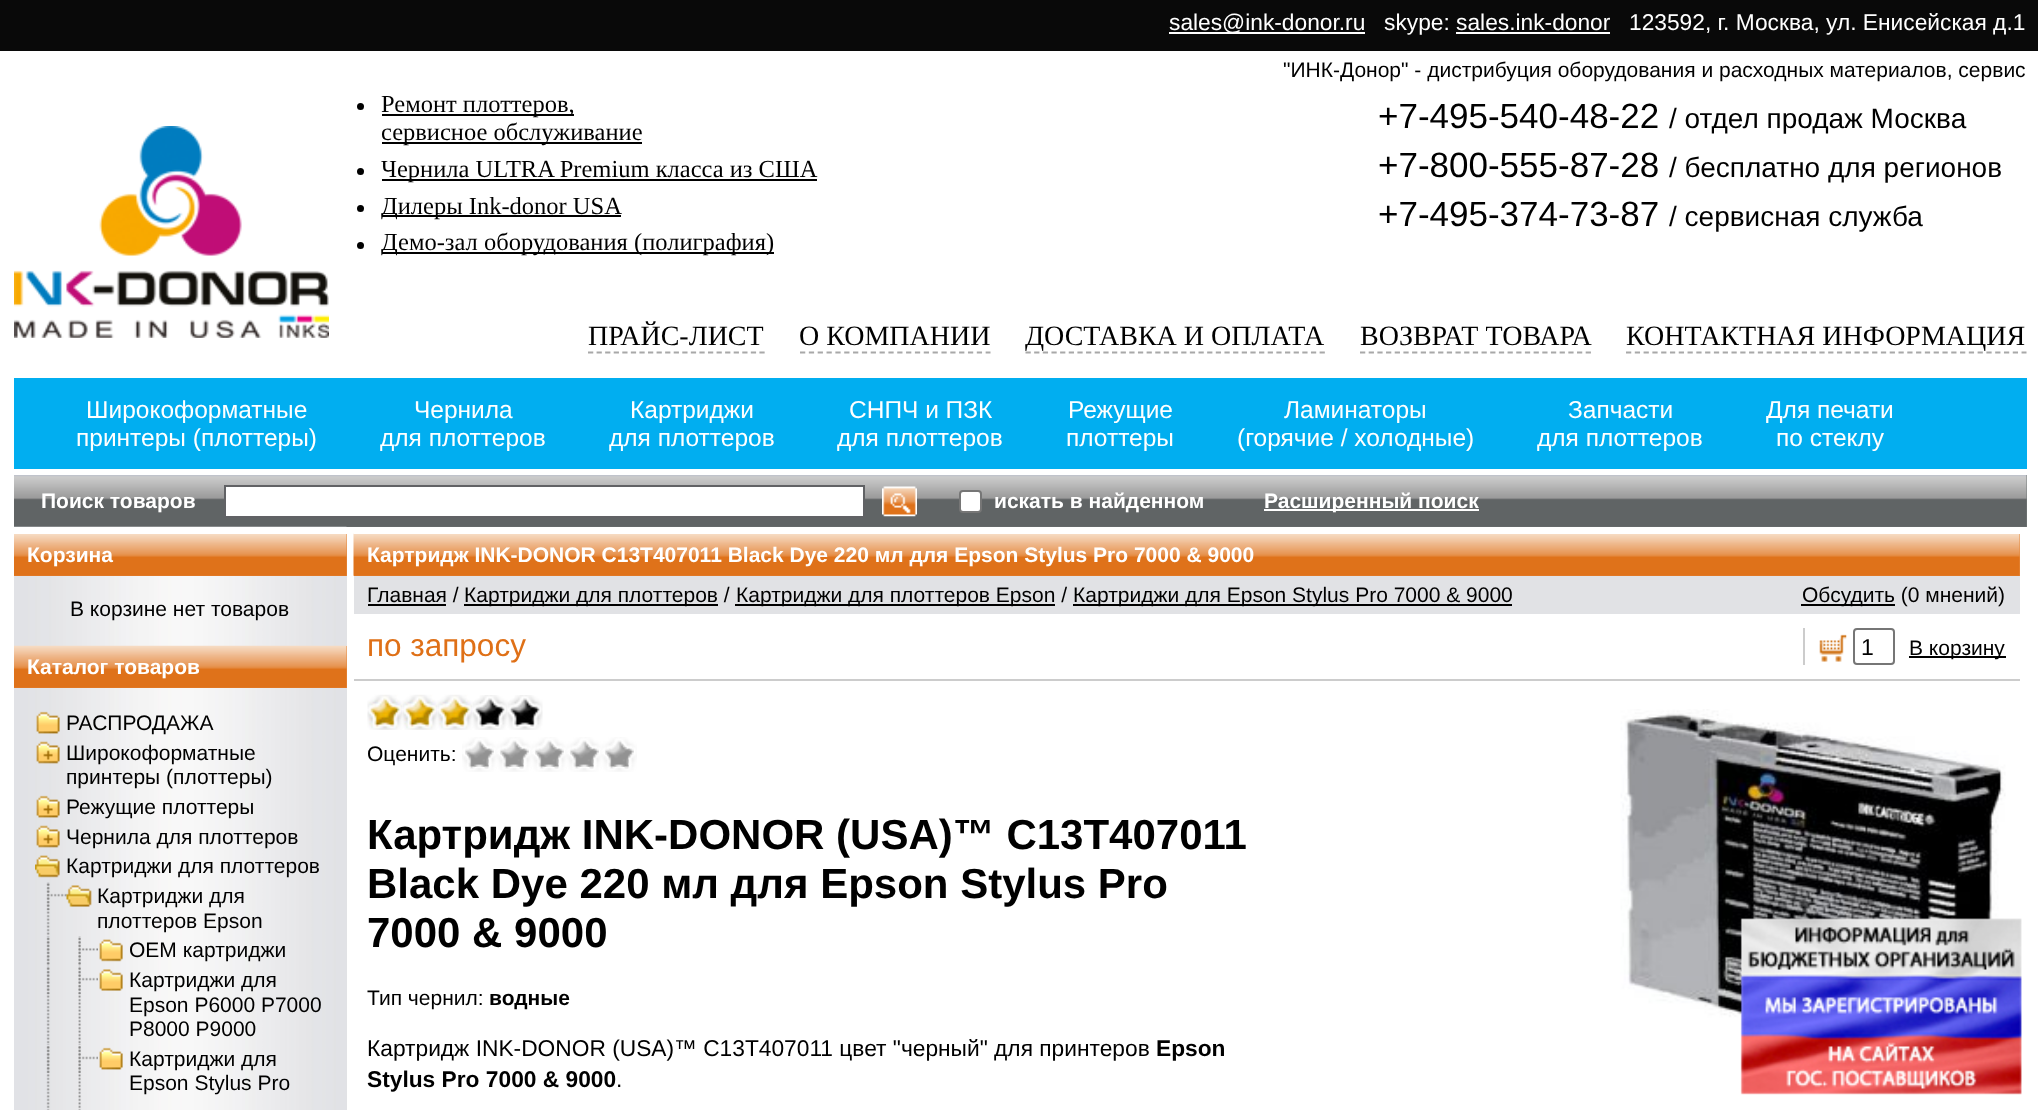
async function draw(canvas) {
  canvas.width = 2038;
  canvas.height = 1110;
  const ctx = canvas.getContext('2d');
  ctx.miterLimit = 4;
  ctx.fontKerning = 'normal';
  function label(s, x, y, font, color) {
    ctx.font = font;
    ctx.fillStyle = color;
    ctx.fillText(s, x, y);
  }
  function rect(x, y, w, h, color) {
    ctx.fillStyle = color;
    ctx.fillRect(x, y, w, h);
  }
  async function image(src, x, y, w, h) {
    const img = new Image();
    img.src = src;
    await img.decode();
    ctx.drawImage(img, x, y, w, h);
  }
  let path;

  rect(0, 0, 2038, 1110, '#fff');
  rect(0, 0, 2038, 51, '#090909');
  rect(1169, 32, 196, 2, '#fff');
  label('sales@ink-donor.ru', 1169, 30, '22.75px Liberation Sans', '#fff');
  label('skype: sales.ink-donor', 1384, 30, '22.75px Liberation Sans', '#fff');
  label('123592, г. Москва, ул. Енисейская д.1', 1629, 30, '22.75px Liberation Sans', '#fff');
  rect(1456, 32, 154, 2, '#fff');
  await image('assets/img1.png', 14, 126, 315, 212);
  ctx.fillStyle = '#000';
  ctx.beginPath();
  ctx.arc(360.5, 106.5, 3.5, 0, 2 * Math.PI);
  ctx.fill();
  rect(382, 114, 192, 2, '#000');
  label('Ремонт плоттеров,', 381, 112, '24.5px Liberation Serif', '#000');
  rect(382, 142, 260, 2, '#000');
  label('сервисное обслуживание', 381, 140, '24.5px Liberation Serif', '#000');
  ctx.beginPath();
  ctx.arc(360.5, 171.5, 3.5, 0, 2 * Math.PI);
  ctx.fill();
  rect(382, 179, 435, 2, '#000');
  label('Чернила ULTRA Premium класса из США', 381, 177, '24.5px Liberation Serif', '#000');
  ctx.beginPath();
  ctx.arc(360.5, 208.5, 3.5, 0, 2 * Math.PI);
  ctx.fill();
  rect(382, 215, 239, 2, '#000');
  label('Дилеры Ink-donor USA', 381, 214, '24.5px Liberation Serif', '#000');
  ctx.beginPath();
  ctx.arc(360.5, 245.5, 3.5, 0, 2 * Math.PI);
  ctx.fill();
  rect(382, 252, 392, 2, '#000');
  label('Демо-зал оборудования (полиграфия)', 381, 250, '24.5px Liberation Serif', '#000');
  label('"ИНК-Донор" - дистрибуция оборудования и расходных материалов, сервис', 1283, 77, '21px Liberation Sans', '#000');
  label('+7-495-540-48-22', 1378, 128, '35px Liberation Sans', '#000');
  label('/ отдел продаж Москва', 1669, 128, '28px Liberation Sans', '#000');
  label('+7-800-555-87-28', 1378, 177, '35px Liberation Sans', '#000');
  label('/ бесплатно для регионов', 1669, 177, '28px Liberation Sans', '#000');
  label('+7-495-374-73-87', 1378, 226, '35px Liberation Sans', '#000');
  label('/ сервисная служба', 1669, 226, '28px Liberation Sans', '#000');
  path = new Path2D('M588 352.5H765');
  ctx.strokeStyle = '#a8a8a8';
  ctx.lineWidth = 1.8;
  ctx.setLineDash([5.25, 3.32]);
  ctx.stroke(path);
  label('ПРАЙС-ЛИСТ', 588, 345, '28px Liberation Serif', '#000');
  path = new Path2D('M800 352.5H990.5');
  ctx.setLineDash([5.25, 3.59]);
  ctx.stroke(path);
  label('О КОМПАНИИ', 799, 345, '28px Liberation Serif', '#000');
  path = new Path2D('M1025.5 352.5H1325');
  ctx.setLineDash([5.25, 3.4]);
  ctx.stroke(path);
  label('ДОСТАВКА И ОПЛАТА', 1025, 345, '28px Liberation Serif', '#000');
  path = new Path2D('M1360 352.5H1591');
  ctx.setLineDash([5.25, 3.43]);
  ctx.stroke(path);
  label('ВОЗВРАТ ТОВАРА', 1360, 345, '28px Liberation Serif', '#000');
  path = new Path2D('M1626 352.5H2026.5');
  ctx.setLineDash([5.25, 3.54]);
  ctx.stroke(path);
  label('КОНТАКТНАЯ ИНФОРМАЦИЯ', 1626, 345, '28px Liberation Serif', '#000');
  rect(14, 378, 2013, 91, '#01aef0');
  label('Широкоформатные', 86, 418, '24.5px Liberation Sans', '#fff');
  label('принтеры (плоттеры)', 76, 446, '24.5px Liberation Sans', '#fff');
  label('Чернила', 414, 418, '24.5px Liberation Sans', '#fff');
  label('для плоттеров', 380, 446, '24.5px Liberation Sans', '#fff');
  label('Картриджи', 630, 418, '24.5px Liberation Sans', '#fff');
  label('для плоттеров', 609, 446, '24.5px Liberation Sans', '#fff');
  label('СНПЧ и ПЗК', 849, 418, '24.5px Liberation Sans', '#fff');
  label('для плоттеров', 837, 446, '24.5px Liberation Sans', '#fff');
  label('Режущие', 1068, 418, '24.5px Liberation Sans', '#fff');
  label('плоттеры', 1066, 446, '24.5px Liberation Sans', '#fff');
  label('Ламинаторы', 1284, 418, '24.5px Liberation Sans', '#fff');
  label('(горячие / холодные)', 1237, 446, '24.5px Liberation Sans', '#fff');
  label('Запчасти', 1568, 418, '24.5px Liberation Sans', '#fff');
  label('для плоттеров', 1537, 446, '24.5px Liberation Sans', '#fff');
  label('Для печати', 1766, 418, '24.5px Liberation Sans', '#fff');
  label('по стеклу', 1776, 446, '24.5px Liberation Sans', '#fff');
  rect(14, 475, 2013, 52, '#757a7b');
  await image('assets/img2.png', 14, 475, 2013, 52);
  label('Поиск товаров', 41, 508, 'bold 21px Liberation Sans', '#fff');
  ctx.beginPath();
  ctx.rect(225, 486, 639, 31);
  ctx.fill();
  ctx.strokeStyle = '#616265';
  ctx.lineWidth = 2;
  ctx.setLineDash([]);
  ctx.stroke();
  await image('assets/img3.png', 882, 486, 35, 31);
  ctx.beginPath();
  ctx.roundRect(960, 491, 21, 21, 3);
  ctx.fill();
  ctx.strokeStyle = '#767676';
  ctx.stroke();
  label('искать в найденном', 994, 508, 'bold 21px Liberation Sans', '#fff');
  rect(1264, 509, 215, 2, '#fff');
  label('Расширенный поиск', 1264, 508, 'bold 21px Liberation Sans', '#fff');
  rect(346, 576, 1, 534, '#e1e2e5');
  await image('assets/img4.png', 14, 526, 333, 584);
  rect(14, 527, 333, 7, '#fff');
  rect(14, 534, 333, 42, '#e58a40');
  await image('assets/img5.png', 14, 534, 333, 42);
  label('Корзина', 27, 562, 'bold 21px Liberation Sans', '#fff');
  label('В корзине нет товаров', 70, 616, '21px Liberation Sans', '#000');
  rect(14, 646, 333, 42, '#e58a40');
  await image('assets/img6.png', 14, 645, 333, 43);
  label('Каталог товаров', 27, 674, 'bold 21px Liberation Sans', '#fff');
  await image('assets/img7.png', 36, 711, 24, 23);
  label('РАСПРОДАЖА', 66, 730, '21px Liberation Sans', '#000');
  await image('assets/img8.png', 36, 741, 24, 23);
  label('Широкоформатные', 66, 760, '21px Liberation Sans', '#000');
  label('принтеры (плоттеры)', 66, 784, '21px Liberation Sans', '#000');
  await image('assets/img9.png', 36, 795, 24, 23);
  label('Режущие плоттеры', 66, 814, '21px Liberation Sans', '#000');
  await image('assets/img8.png', 36, 825, 24, 23);
  label('Чернила для плоттеров', 66, 844, '21px Liberation Sans', '#000');
  await image('assets/img10.png', 35, 855, 25, 23);
  label('Картриджи для плоттеров', 66, 873, '21px Liberation Sans', '#000');
  await image('assets/img11.png', 46, 882, 4, 55);
  await image('assets/img12.png', 46, 883, 21, 27);
  await image('assets/img13.png', 66, 885, 26, 22);
  label('Картриджи для', 97, 903, '21px Liberation Sans', '#000');
  label('плоттеров Epson', 97, 928, '21px Liberation Sans', '#000');
  await image('assets/img14.png', 46, 936, 4, 30);
  await image('assets/img15.png', 46, 937, 4, 28);
  await image('assets/img16.png', 78, 936, 3, 30);
  await image('assets/img17.png', 78, 937, 20, 28);
  await image('assets/img18.png', 99, 939, 24, 23);
  label('OEM картриджи', 129, 957, '21px Liberation Sans', '#000');
  await image('assets/img19.png', 46, 966, 4, 79);
  await image('assets/img20.png', 46, 967, 4, 27);
  await image('assets/img21.png', 78, 966, 3, 79);
  await image('assets/img22.png', 78, 967, 20, 27);
  await image('assets/img23.png', 99, 969, 24, 22);
  label('Картриджи для', 129, 987, '21px Liberation Sans', '#000');
  label('Epson P6000 P7000', 129, 1012, '21px Liberation Sans', '#000');
  label('P8000 P9000', 129, 1036, '21px Liberation Sans', '#000');
  await image('assets/img24.png', 46, 1044, 4, 66);
  await image('assets/img25.png', 46, 1046, 4, 27);
  await image('assets/img26.png', 78, 1044, 3, 66);
  await image('assets/img27.png', 78, 1046, 20, 27);
  await image('assets/img28.png', 99, 1047, 24, 23);
  label('Картриджи для', 129, 1066, '21px Liberation Sans', '#000');
  label('Epson Stylus Pro', 129, 1090, '21px Liberation Sans', '#000');
  rect(354, 534, 1666, 42, '#e58a40');
  await image('assets/img29.png', 353, 533, 1667, 43);
  rect(354, 533, 1666, 1, '#fff');
  label('Картридж INK-DONOR C13T407011 Black Dye 220 мл для Epson Stylus Pro 7000 & 9000', 367, 562, 'bold 21px Liberation Sans', '#fff');
  rect(354, 576, 1666, 38, '#e1e2e5');
  label('Главная /', 367, 602, '21px Liberation Sans', '#000');
  rect(368, 604, 78, 2, '#000');
  rect(464, 604, 254, 2, '#000');
  label('Картриджи для плоттеров /', 464, 602, '21px Liberation Sans', '#000');
  rect(735, 604, 320, 2, '#000');
  label('Картриджи для плоттеров Epson /', 736, 602, '21px Liberation Sans', '#000');
  rect(1073, 604, 439, 2, '#000');
  label('Картриджи для Epson Stylus Pro 7000 & 9000', 1073, 602, '21px Liberation Sans', '#000');
  rect(1801, 604, 94, 2, '#000');
  label('Обсудить (0 мнений)', 1802, 602, '21px Liberation Sans', '#000');
  label('по запросу', 367, 656, '31.5px Liberation Sans', '#df7017');
  rect(1803, 628, 2, 37, '#ccc');
  await image('assets/img30.png', 1819, 634, 28, 28);
  ctx.beginPath();
  ctx.roundRect(1854, 629, 40, 35, 3);
  ctx.stroke();
  label('1', 1861, 655, '23px Liberation Sans', '#000');
  rect(1909, 656, 97, 2, '#000');
  label('В корзину', 1909, 655, '21px Liberation Sans', '#000');
  rect(354, 679, 1666, 2, '#ccc');
  await image('assets/img31.png', 367, 694, 36, 36);
  await image('assets/img32.png', 402, 694, 36, 36);
  await image('assets/img32.png', 437, 694, 36, 36);
  await image('assets/img33.png', 472, 695, 36, 35);
  await image('assets/img34.png', 507, 695, 36, 35);
  label('Оценить:', 367, 761, '21px Liberation Sans', '#000');
  await image('assets/img35.png', 462, 737, 175, 35);
  await image('assets/img36.png', 465, 744, 169, 25);
  label('Картридж INK-DONOR (USA)™ C13T407011', 367, 849, 'bold 42px Liberation Sans', '#000');
  label('Black Dye 220 мл для Epson Stylus Pro', 367, 898, 'bold 42px Liberation Sans', '#000');
  label('7000 & 9000', 367, 947, 'bold 42px Liberation Sans', '#000');
  label('Тип чернил:', 367, 1005, '21px Liberation Sans', '#000');
  label('водные', 489, 1005, 'bold 21px Liberation Sans', '#000');
  label('Картридж INK-DONOR (USA)™ C13T407011 цвет "черный" для принтеров', 367, 1056, '22.75px Liberation Sans', '#000');
  label('Epson', 1156, 1056, 'bold 22.75px Liberation Sans', '#000');
  label('Stylus Pro 7000 & 9000', 367, 1087, 'bold 22.75px Liberation Sans', '#000');
  label('.', 616, 1087, '22.75px Liberation Sans', '#000');
  await image('assets/img37.png', 1620, 709, 386, 364);
  await image('assets/img38.png', 1740, 918, 282, 177);
}

draw(document.querySelector('canvas'));
